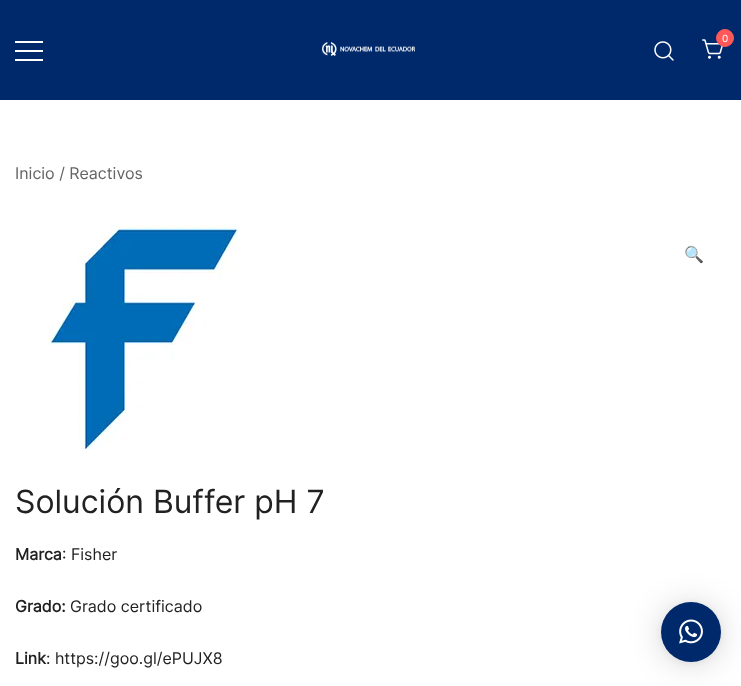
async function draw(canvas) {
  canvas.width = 741;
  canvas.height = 686;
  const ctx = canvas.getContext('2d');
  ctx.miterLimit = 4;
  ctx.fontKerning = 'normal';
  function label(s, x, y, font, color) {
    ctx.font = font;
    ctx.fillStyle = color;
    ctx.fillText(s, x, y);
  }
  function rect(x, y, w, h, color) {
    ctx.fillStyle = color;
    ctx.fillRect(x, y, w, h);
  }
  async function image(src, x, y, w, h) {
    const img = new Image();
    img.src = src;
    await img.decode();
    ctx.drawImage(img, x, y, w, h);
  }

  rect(0, 0, 741, 686, '#fff');
  rect(0, 0, 741, 100, '#00296b');
  await image('assets/img1.png', 702, 39, 21, 20);
  ctx.fillStyle = '#ff5858';
  ctx.beginPath();
  ctx.arc(725, 38, 8.5, 0, 2 * Math.PI);
  ctx.fill();
  ctx.strokeStyle = '#ff5858';
  ctx.stroke();
  label('0', 722, 42, '10px Inter', '#fff');
  await image('assets/img2.png', 654, 41, 20, 20);
  rect(15, 41, 28, 2, '#fff');
  rect(15, 50, 28, 2, '#fff');
  rect(15, 59, 28, 2, '#fff');
  await image('assets/img3.png', 322, 42, 93, 14);
  label('Inicio / Reactivos', 15, 179, '16px Inter', '#646464');
  await image('assets/img4.png', 46, 225, 193, 225);
  label('🔍', 684, 260, '16px Noto Color Emoji', '#212121');
  label('Solución Buffer pH 7', 15, 513, '32px Inter', '#212121');
  label('Marca', 15, 560, 'bold 16px Inter', '#212121');
  label(': Fisher', 62, 560, '16px Inter', '#212121');
  label('Grado:', 15, 612, 'bold 16px Inter', '#212121');
  label('Grado certificado', 70, 612, '16px Inter', '#212121');
  label('Link', 15, 664, 'bold 16px Inter', '#212121');
  label(': https://goo.gl/ePUJX8', 46, 664, '16px Inter', '#212121');
  ctx.fillStyle = '#00000029';
  ctx.filter = 'blur(16px)';
  ctx.beginPath();
  ctx.roundRect(661, 604, 60, 60, 30);
  ctx.fill();
  ctx.filter = 'none';
  ctx.fillStyle = '#0000000f';
  ctx.filter = 'blur(3px)';
  ctx.beginPath();
  ctx.roundRect(661, 603, 60, 60, 30);
  ctx.fill();
  ctx.filter = 'none';
  ctx.fillStyle = '#00296b';
  ctx.beginPath();
  ctx.arc(691, 632, 30, 0, 2 * Math.PI);
  ctx.fill();
  await image('assets/img5.png', 679, 619, 24, 25);
}

draw(document.querySelector('canvas'));
